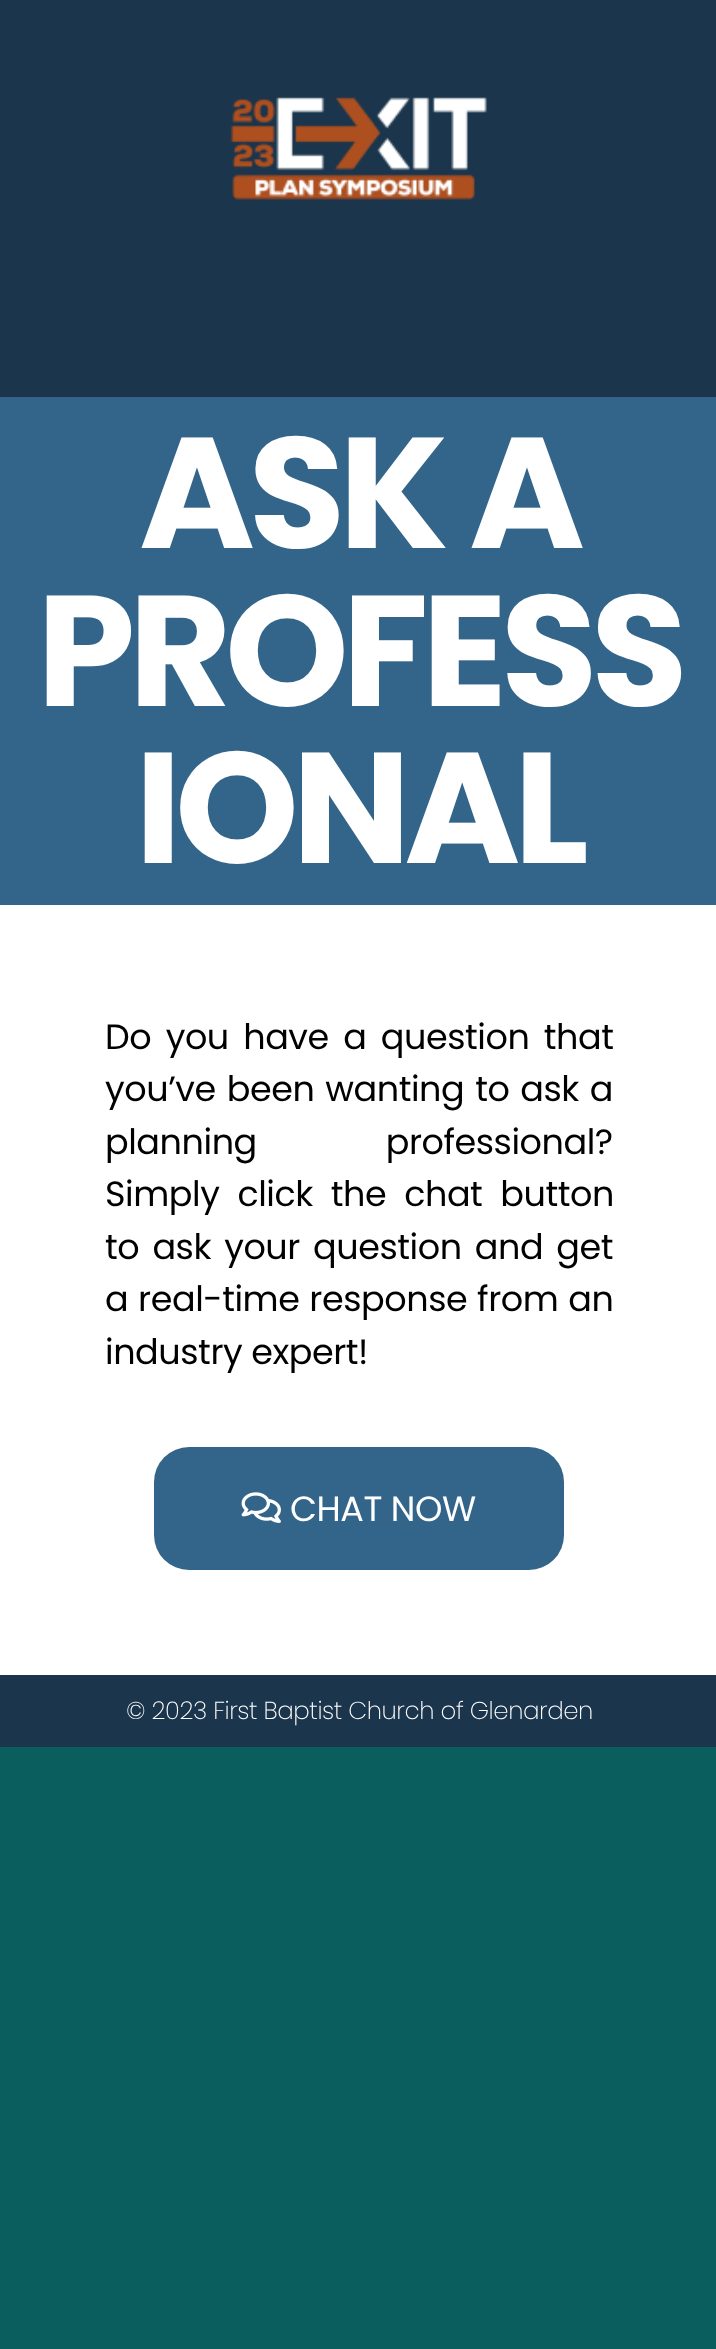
async function draw(canvas) {
  canvas.width = 716;
  canvas.height = 2349;
  const ctx = canvas.getContext('2d');
  ctx.miterLimit = 4;
  ctx.fontKerning = 'normal';
  function label(s, x, y, font, color) {
    ctx.font = font;
    ctx.fillStyle = color;
    ctx.fillText(s, x, y);
  }
  function rect(x, y, w, h, color) {
    ctx.fillStyle = color;
    ctx.fillRect(x, y, w, h);
  }
  function roundedRect(x, y, w, h, r, color) {
    ctx.fillStyle = color;
    ctx.beginPath();
    ctx.roundRect(x, y, w, h, r);
    ctx.fill();
  }
  async function image(src, x, y, w, h) {
    const img = new Image();
    img.src = src;
    await img.decode();
    ctx.drawImage(img, x, y, w, h);
  }
  let path;

  rect(0, 0, 716, 2349, '#0a5e5d');
  rect(0, 0, 716, 397, '#1b354c');
  await image('assets/img1.png', 230, 97, 257, 103);
  rect(0, 397, 716, 508, '#33658a');
  ctx.letterSpacing = '-6.5px';
  label('ASK A', 139, 548, 'bold 157.5px Poppins', '#fff');
  label('PROFESS', 37, 706, 'bold 157.5px Poppins', '#fff');
  label('IONAL', 135, 863, 'bold 157.5px Poppins', '#fff');
  rect(0, 905, 716, 770, '#fff');
  ctx.letterSpacing = '-0.45px';
  ctx.wordSpacing = '5.5px';
  label('Do you have a question that', 105, 1049, '35px Poppins', '#000');
  ctx.wordSpacing = '2px';
  label('you’ve been wanting to ask a', 105, 1101, '35px Poppins', '#000');
  ctx.wordSpacing = '120px';
  label('planning professional?', 105, 1154, '35px Poppins', '#000');
  ctx.wordSpacing = '9px';
  label('Simply click the chat button', 105, 1206, '35px Poppins', '#000');
  ctx.wordSpacing = '4.25px';
  label('to ask your question and get', 105, 1259, '35px Poppins', '#000');
  ctx.wordSpacing = '1px';
  label('a real-time response from an', 105, 1311, '35px Poppins', '#000');
  ctx.wordSpacing = '0px';
  label('industry expert!', 105, 1364, '35px Poppins', '#000');
  ctx.fillStyle = '#fff';
  path = new Path2D('M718 1678H0V1611Z');
  ctx.fill(path);
  ctx.fillStyle = '#ffffff40';
  path = new Path2D('M0 1678H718V1553L0 1611Z');
  ctx.fill(path);
  roundedRect(154, 1447, 410, 123, 35, '#33658a');
  await image('assets/img2.png', 241, 1492, 40, 31);
  label('CHAT NOW', 290, 1521, '35px Poppins', '#fff');
  rect(0, 1675, 716, 72, '#1b354c');
  label('© 2023 First Baptist Church of Glenarden', 126, 1719, '200 24.5px Poppins', '#fff');
}

draw(document.querySelector('canvas'));
